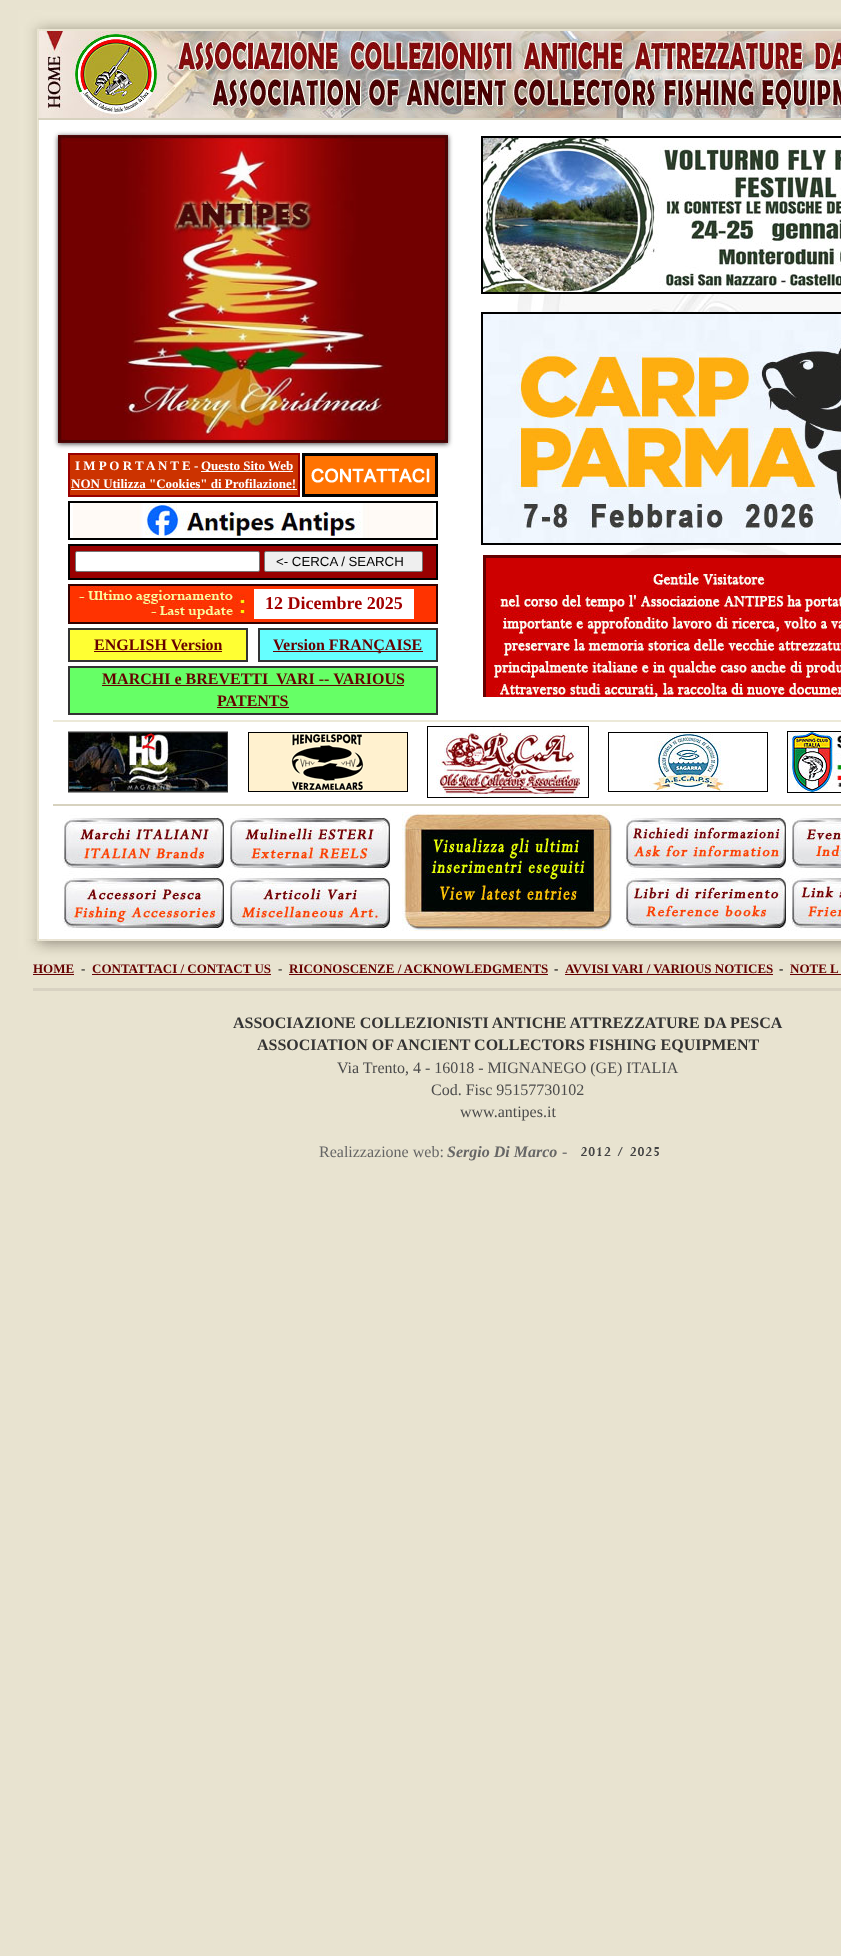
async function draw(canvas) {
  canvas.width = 841;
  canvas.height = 1956;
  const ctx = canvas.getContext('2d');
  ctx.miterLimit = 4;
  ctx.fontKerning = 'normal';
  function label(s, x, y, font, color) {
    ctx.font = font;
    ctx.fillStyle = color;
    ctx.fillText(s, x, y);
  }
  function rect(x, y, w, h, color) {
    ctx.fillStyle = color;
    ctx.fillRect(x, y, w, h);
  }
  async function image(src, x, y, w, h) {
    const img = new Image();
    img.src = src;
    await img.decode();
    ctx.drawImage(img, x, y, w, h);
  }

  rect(0, 0, 841, 1956, '#e8e3d0');
  await image('assets/img1.png', 18, 10, 823, 21);
  await image('assets/img2.png', 18, 31, 21, 87);
  await image('assets/img3.png', 39, 31, 802, 87);
  await image('assets/img4.png', 18, 118, 20, 2);
  rect(38, 118, 803, 2, '#d7d2bf');
  await image('assets/img5.png', 18, 120, 21, 819);
  rect(39, 120, 802, 819, '#fff');
  ctx.fillStyle = '#4a4a4a';
  ctx.filter = 'blur(2.5px)';
  ctx.beginPath();
  ctx.rect(58, 136, 390, 308);
  ctx.fill();
  ctx.filter = 'none';
  await image('assets/img6.png', 58, 135, 390, 308);
  rect(68, 453, 232, 44, '#900');
  rect(70, 455, 228, 40, '#c30');
  label('I M P O R T A N T E -', 75, 470, 'bold 13px Liberation Serif', '#fff');
  rect(201, 471, 92, 1, '#fff');
  label('Questo Sito Web', 201, 470, 'bold 13px Liberation Serif', '#fff');
  label('NON Utilizza "Cookies" di Profilazione!', 71, 488, 'bold 13px Liberation Serif', '#fff');
  rect(71, 489, 226, 1, '#fff');
  ctx.strokeStyle = '#000';
  ctx.lineWidth = 3;
  ctx.strokeRect(303.5, 454.5, 133, 41);
  await image('assets/img7.png', 305, 456, 130, 38);
  rect(68, 501, 370, 39, '#000');
  rect(70, 503, 366, 35, '#fff');
  await image('assets/img8.png', 73, 503, 360, 35);
  rect(68, 544, 370, 36, '#000');
  rect(70, 546, 366, 32, '#900');
  ctx.fillStyle = '#fff';
  ctx.beginPath();
  ctx.roundRect(75.5, 551.5, 184, 20, 1.5);
  ctx.fill();
  ctx.strokeStyle = '#767676';
  ctx.lineWidth = 1;
  ctx.stroke();
  ctx.fillStyle = '#efefef';
  ctx.beginPath();
  ctx.roundRect(264.5, 551.5, 158, 20, 1.5);
  ctx.fill();
  ctx.stroke();
  label('<- CERCA / SEARCH', 276, 566, '13.25px Liberation Sans', '#000');
  rect(68, 584, 370, 40, '#300');
  rect(70, 586, 366, 36, '#f30');
  await image('assets/img9.png', 78, 586, 168, 36);
  rect(254, 589, 160, 30, '#fff');
  label('12 Dicembre 2025', 265, 609, 'bold 18px Liberation Serif', '#a20000');
  rect(68, 628, 180, 34, '#333');
  rect(70, 630, 176, 30, '#ff3');
  label('ENGLISH Version', 94, 650, 'bold 16px Liberation Serif', '#600');
  rect(94, 651, 128, 1, '#600');
  rect(258, 628, 180, 34, '#333');
  rect(260, 630, 176, 30, '#6ff');
  rect(273, 651, 150, 1, '#600');
  label('Version FRANÇAISE', 273, 650, 'bold 16px Liberation Serif', '#600');
  rect(68, 666, 370, 49, '#333');
  rect(70, 668, 366, 45, '#6f6');
  label('MARCHI e BREVETTI  VARI -- VARIOUS', 102, 684, 'bold 16px Liberation Serif', '#600');
  rect(102, 685, 302, 1, '#600');
  label('PATENTS', 217, 706, 'bold 16px Liberation Serif', '#600');
  rect(217, 707, 72, 1, '#600');
  await image('assets/img10.png', 517, 294, 324, 261);
  ctx.strokeStyle = '#000';
  ctx.lineWidth = 2;
  ctx.strokeRect(482, 137, 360, 156);
  await image('assets/img11.png', 483, 138, 358, 154);
  ctx.strokeRect(482, 313, 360, 231);
  await image('assets/img12.png', 483, 314, 358, 229);
  rect(483, 555, 358, 3, '#600');
  rect(483, 558, 3, 139, '#600');
  await image('assets/img13.png', 486, 558, 355, 139);
  rect(53, 720, 788, 2, '#ece9d8');
  rect(68, 731, 160, 62, '#999');
  rect(68, 732, 160, 60, '#333');
  await image('assets/img14.png', 69, 733, 158, 58);
  rect(248, 732, 160, 60, '#000');
  await image('assets/img15.png', 249, 733, 158, 58);
  ctx.lineWidth = 1;
  ctx.strokeRect(427.5, 726.5, 161, 71);
  await image('assets/img16.png', 436, 727, 144, 70);
  rect(608, 732, 160, 60, '#000');
  await image('assets/img17.png', 609, 733, 158, 58);
  ctx.strokeRect(787.5, 731.5, 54, 61);
  await image('assets/img18.png', 788, 732, 53, 60);
  rect(53, 804, 788, 2, '#d7d2bf');
  await image('assets/img19.png', 62, 815, 329, 116);
  await image('assets/img20.png', 402, 812, 211, 119);
  await image('assets/img21.png', 624, 815, 217, 116);
  await image('assets/img22.png', 18, 939, 823, 21);
  label('HOME', 33, 973, 'bold 13px Liberation Serif', '#600');
  rect(33, 974, 41, 1, '#600');
  label('-', 81, 973, '13px Liberation Serif', '#000');
  label('CONTATTACI / CONTACT US', 92, 973, 'bold 13px Liberation Serif', '#600');
  rect(92, 974, 179, 1, '#600');
  label('-', 278, 973, '13px Liberation Serif', '#000');
  label('RICONOSCENZE / ACKNOWLEDGMENTS', 289, 973, 'bold 13px Liberation Serif', '#600');
  rect(289, 974, 259, 1, '#600');
  label('-', 554, 973, 'bold 13px Liberation Serif', '#000');
  label('AVVISI VARI / VARIOUS NOTICES', 565, 973, 'bold 13px Liberation Serif', '#600');
  rect(565, 974, 208, 1, '#600');
  label('-', 779, 973, 'bold 13px Liberation Serif', '#000');
  label('NOTE L', 790, 973, 'bold 13px Liberation Serif', '#600');
  rect(790, 974, 51, 1, '#600');
  rect(33, 988, 808, 3, '#d8d2c2');
  label('ASSOCIAZIONE COLLEZIONISTI ANTICHE ATTREZZATURE DA PESCA', 233, 1028, 'bold 16px Liberation Serif', '#333');
  label('ASSOCIATION OF ANCIENT COLLECTORS FISHING EQUIPMENT', 257, 1050, 'bold 16px Liberation Serif', '#333');
  label('Via Trento, 4 - 16018 - MIGNANEGO (GE) ITALIA', 337, 1073, '16px Liberation Serif', '#4b4b4b');
  label('Cod. Fisc 95157730102', 431, 1095, '16px Liberation Serif', '#4b4b4b');
  label('www.antipes.it', 460, 1117, '16px Liberation Serif', '#4b4b4b');
  label('Realizzazione web:', 319, 1157, '16px Liberation Serif', '#666');
  label('Sergio Di Marco', 447, 1157, 'italic bold 16px Liberation Serif', '#666');
  label('-', 562, 1157, '16px Liberation Serif', '#666');
  await image('assets/img23.png', 581, 1147, 78, 9);
}

draw(document.querySelector('canvas'));
